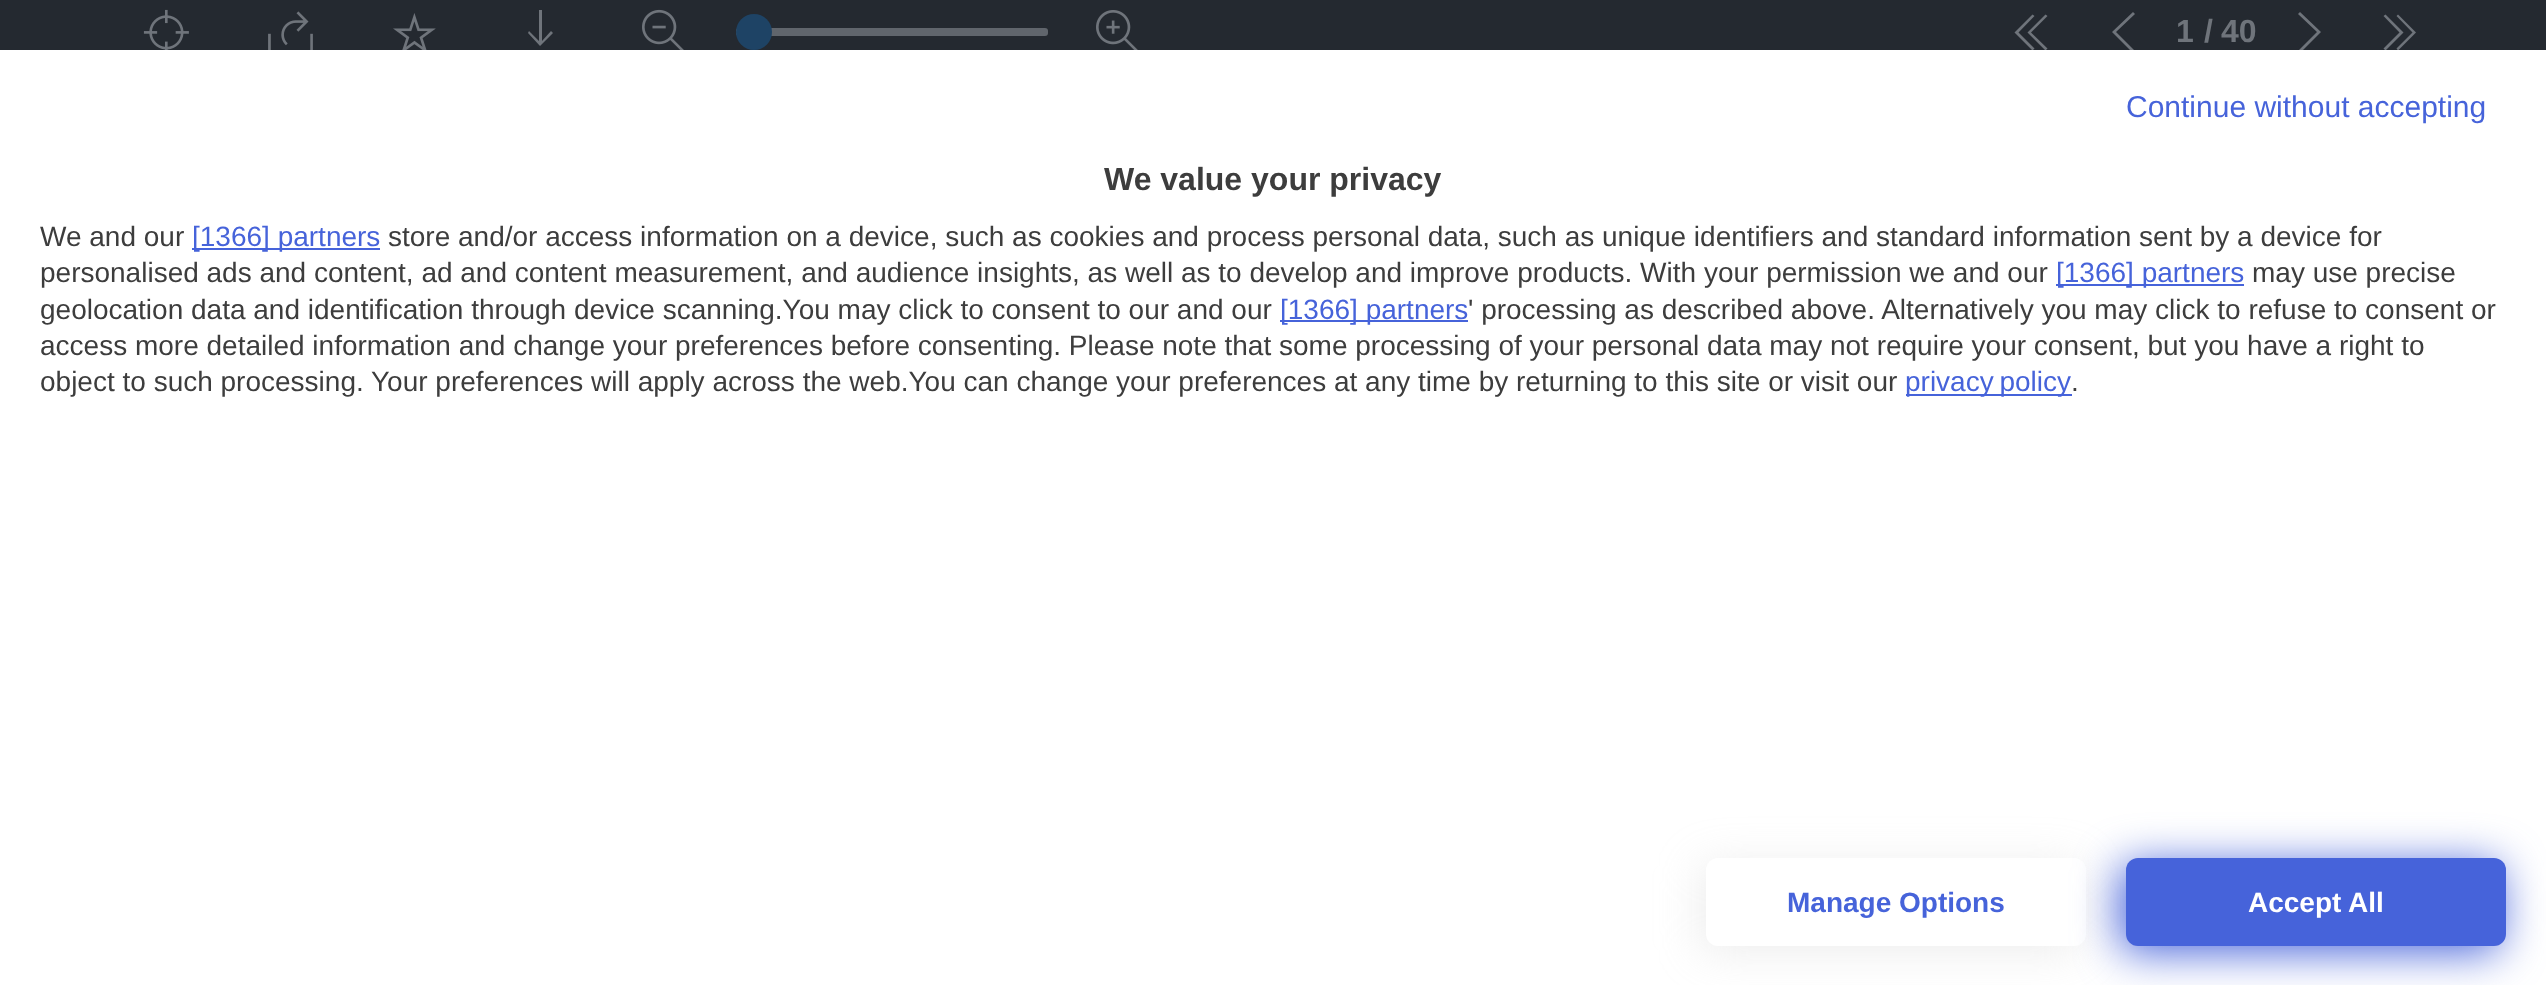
async function draw(canvas) {
  canvas.width = 2546;
  canvas.height = 985;
  const ctx = canvas.getContext('2d');
  ctx.miterLimit = 4;
  ctx.fontKerning = 'normal';
  function label(s, x, y, font, color) {
    ctx.font = font;
    ctx.fillStyle = color;
    ctx.fillText(s, x, y);
  }
  function rect(x, y, w, h, color) {
    ctx.fillStyle = color;
    ctx.fillRect(x, y, w, h);
  }
  function roundedRect(x, y, w, h, r, color) {
    ctx.fillStyle = color;
    ctx.beginPath();
    ctx.roundRect(x, y, w, h, r);
    ctx.fill();
  }
  async function image(src, x, y, w, h) {
    const img = new Image();
    img.src = src;
    await img.decode();
    ctx.drawImage(img, x, y, w, h);
  }
  let path;

  rect(0, 0, 2546, 985, '#242930');
  await image('assets/img1.png', 143, 9, 46, 41);
  await image('assets/img2.png', 268, 11, 45, 39);
  await image('assets/img3.png', 393, 13, 43, 37);
  ctx.fillStyle = '#6f747b';
  path = new Path2D('M563 52V55H518V52ZM553 33L551 31L542 41V10H539V41L529 31L528 33L540 46Z');
  ctx.fill(path);
  await image('assets/img4.png', 642, 9, 42, 41);
  roundedRect(736, 28, 312, 8, 3, '#60656c');
  ctx.fillStyle = '#1e4365';
  ctx.beginPath();
  ctx.arc(754, 32, 18, 0, 2 * Math.PI);
  ctx.fill();
  await image('assets/img5.png', 1096, 10, 42, 40);
  ctx.fillStyle = '#6f747b';
  path = new Path2D('M2031 32.5L2047.5 48.5L2045.5 50.5L2027.5 32.5L2045.5 14.5L2047.5 16ZM2034.5 16L2032.5 14.5L2014.5 32.5L2032.5 50.5L2034.5 48.5L2018.5 32.5Z');
  ctx.fill(path);
  path = new Path2D('M2116 32L2135 51L2133 53L2112 32L2133 12L2135 14Z');
  ctx.fill(path);
  label('1', 2176, 42, 'bold 32px Liberation Sans', '#6f747b');
  label('/', 2204, 42, 'bold 32px Liberation Sans', '#6f747b');
  label('40', 2221, 42, 'bold 32px Liberation Sans', '#6f747b');
  path = new Path2D('M2321 32L2300 53L2298 51L2317 32L2298 14L2300 12Z');
  ctx.fill(path);
  path = new Path2D('M2403.5 32.5L2385.5 50.5L2383.5 48.5L2399.5 32.5L2383.5 16L2385.5 14.5ZM2398 14.5L2396.5 16L2412.5 32.5L2396.5 48.5L2398 50.5L2416 32.5Z');
  ctx.fill(path);
  rect(0, 50, 2546, 935, '#fff');
  label('Continue without accepting', 2126, 117, '30px Liberation Sans', '#4663da');
  label('We value your privacy', 1104, 190, 'bold 32px Liberation Sans', '#3d3d3d');
  label('We and our', 40, 246, '28px Liberation Sans', '#3d3d3d');
  rect(192, 248, 188, 2, '#4663da');
  label('[1366] partners', 192, 246, '28px Liberation Sans', '#4663da');
  label('store and/or access information on a device, such as cookies and process personal data, such as unique identifiers and standard information sent by a device for', 388, 246, '28px Liberation Sans', '#3d3d3d');
  label('personalised ads and content, ad and content measurement, and audience insights, as well as to develop and improve products. With your permission we and our', 40, 282, '28px Liberation Sans', '#3d3d3d');
  rect(2056, 284, 188, 2, '#4663da');
  label('[1366] partners', 2056, 282, '28px Liberation Sans', '#4663da');
  label('may use precise', 2252, 282, '28px Liberation Sans', '#3d3d3d');
  label('geolocation data and identification through device scanning.You may click to consent to our and our', 40, 319, '28px Liberation Sans', '#3d3d3d');
  rect(1280, 320, 188, 2, '#4663da');
  label('[1366] partners', 1280, 319, '28px Liberation Sans', '#4663da');
  label('\' processing as described above. Alternatively you may click to refuse to consent or', 1468, 319, '28px Liberation Sans', '#3d3d3d');
  label('access more detailed information and change your preferences before consenting. Please note that some processing of your personal data may not require your consent, but you have a right to', 40, 355, '28px Liberation Sans', '#3d3d3d');
  label('object to such processing. Your preferences will apply across the web.You can change your preferences at any time by returning to this site or visit our', 40, 391, '28px Liberation Sans', '#3d3d3d');
  rect(1906, 394, 166, 2, '#4663da');
  ctx.wordSpacing = '-2px';
  label('privacy policy', 1905, 391, '28px Liberation Sans', '#4663da');
  ctx.wordSpacing = '0px';
  label('.', 2071, 391, '28px Liberation Sans', '#3d3d3d');
  ctx.fillStyle = '#c4c4c44d';
  ctx.filter = 'blur(22px)';
  ctx.beginPath();
  ctx.roundRect(1700, 864, 380, 88, 12);
  ctx.fill();
  ctx.filter = 'none';
  roundedRect(1706, 858, 380, 88, 12, '#fff');
  label('Manage Options', 1787, 912, 'bold 28px Liberation Sans', '#4663da');
  ctx.filter = 'blur(22px)';
  ctx.beginPath();
  ctx.roundRect(2120, 864, 380, 88, 12);
  ctx.fill();
  ctx.filter = 'none';
  roundedRect(2126, 858, 380, 88, 12, '#4663da');
  label('Accept All', 2248, 912, 'bold 28px Liberation Sans', '#fff');
}

draw(document.querySelector('canvas'));
